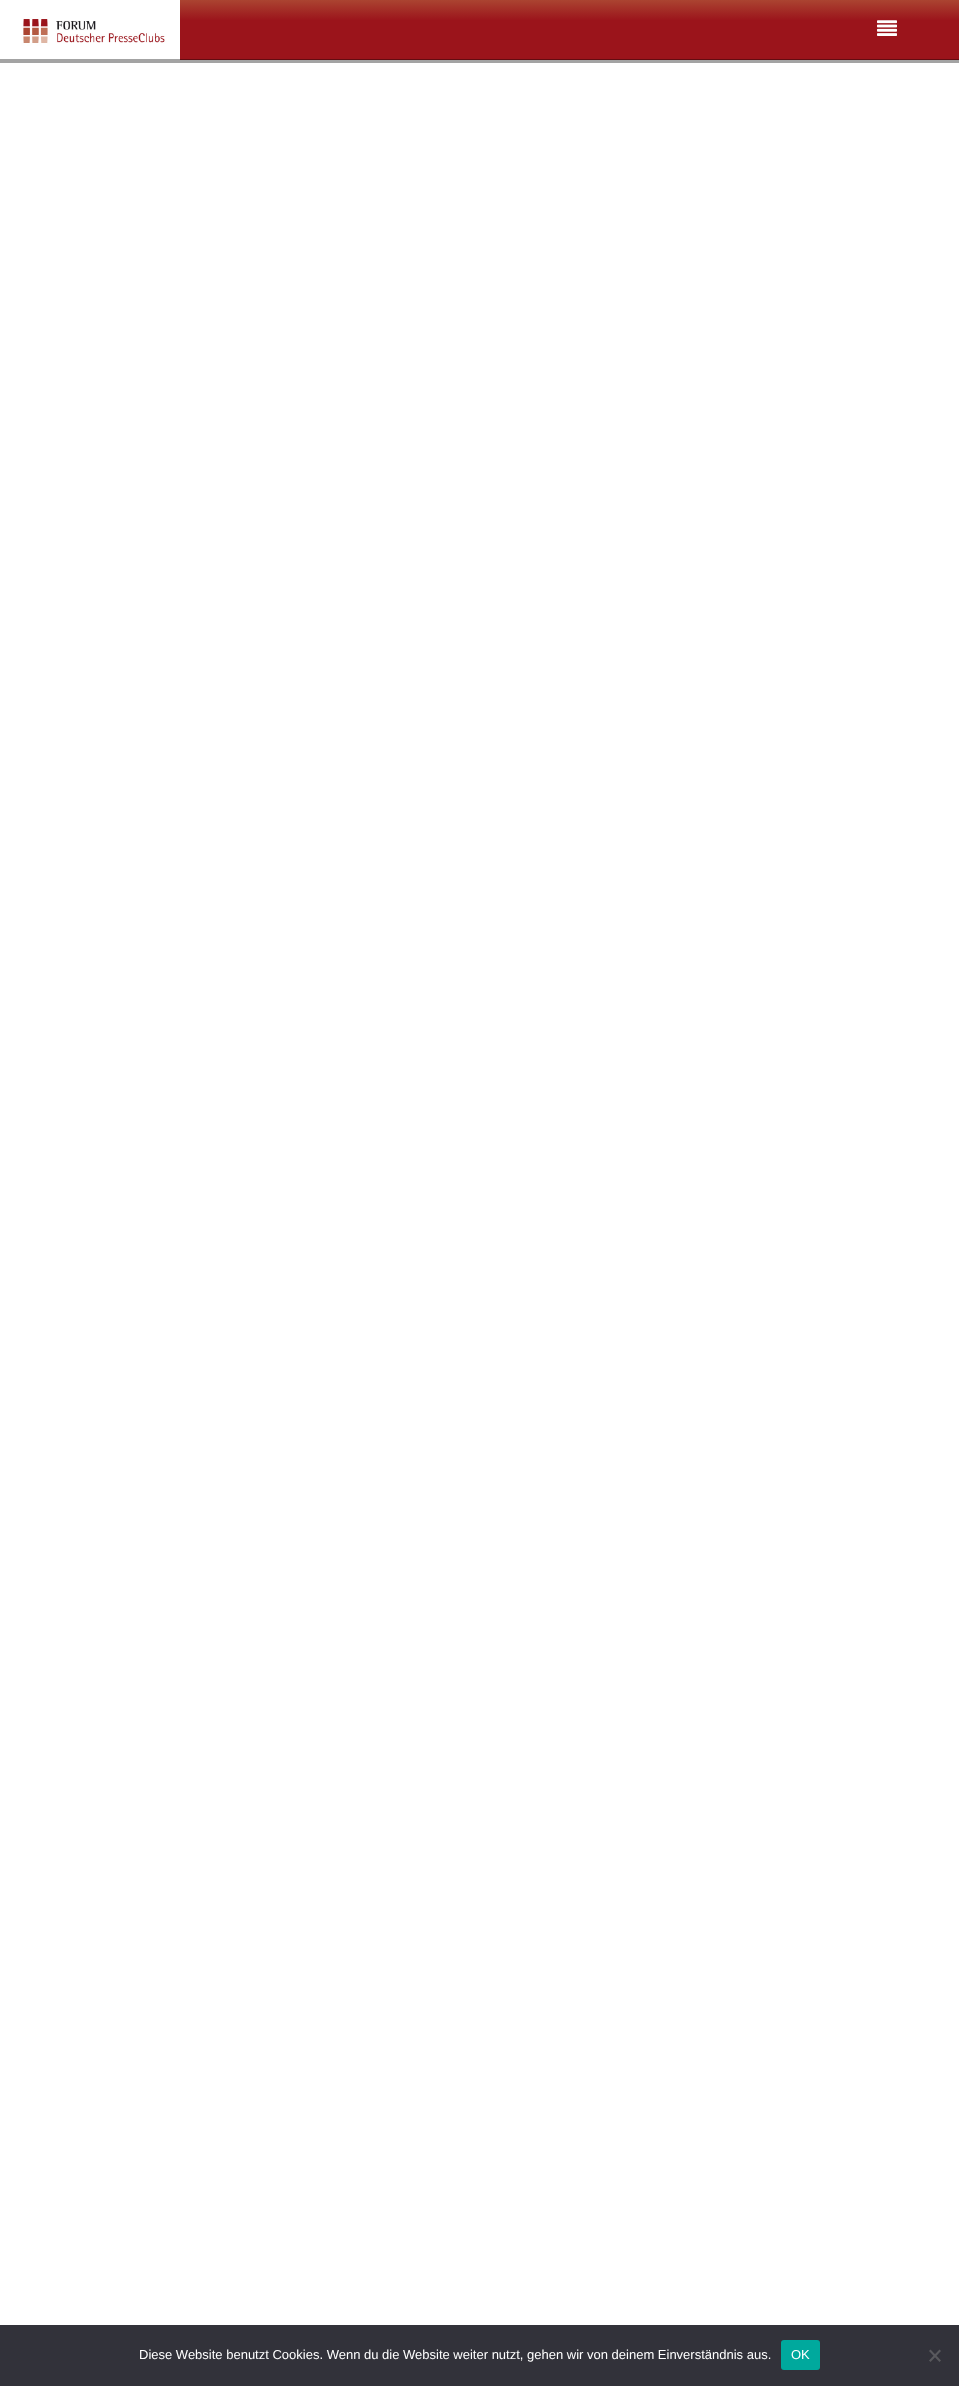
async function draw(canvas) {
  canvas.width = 959;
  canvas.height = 2386;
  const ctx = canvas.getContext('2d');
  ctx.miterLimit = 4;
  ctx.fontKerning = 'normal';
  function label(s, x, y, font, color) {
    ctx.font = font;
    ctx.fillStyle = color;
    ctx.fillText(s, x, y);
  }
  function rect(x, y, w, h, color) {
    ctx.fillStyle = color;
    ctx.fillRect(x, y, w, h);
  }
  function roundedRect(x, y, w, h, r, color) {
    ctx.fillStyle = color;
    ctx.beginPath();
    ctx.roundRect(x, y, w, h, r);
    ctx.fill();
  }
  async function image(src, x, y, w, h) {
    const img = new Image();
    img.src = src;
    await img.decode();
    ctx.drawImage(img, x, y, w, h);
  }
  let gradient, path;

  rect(0, 0, 959, 2386, '#fff');
  gradient = ctx.createLinearGradient(480, 0, 480, 60);
  gradient.addColorStop(0, '#ab4431');
  gradient.addColorStop(0.34, '#9b141b');
  gradient.addColorStop(1, '#9b141b');
  ctx.fillStyle = gradient;
  ctx.fillRect(180, 0, 779, 60);
  await image('assets/img1.png', 0, 0, 180, 60);
  await image('assets/img2.png', 877, 20, 20, 16);
  rect(0, 59, 959, 4, '#0000005c');
  rect(0, 2325, 959, 61, '#32323a');
  label('Diese Website benutzt Cookies. Wenn du die Website weiter nutzt, gehen wir von deinem Einverständnis aus.', 139, 2359, '13px Liberation Sans', '#fff');
  roundedRect(781, 2340, 39, 30, 3, '#00a99d');
  label('OK', 791, 2359, '13px Liberation Sans', '#fff');
  ctx.fillStyle = '#59595d';
  path = new Path2D('M939.5 2349.5L941 2351L930.5 2362L929 2360.5Z');
  ctx.fill(path);
  path = new Path2D('M929 2351L930.5 2349.5L941 2360.5L939.5 2362Z');
  ctx.fill(path);
}

draw(document.querySelector('canvas'));
